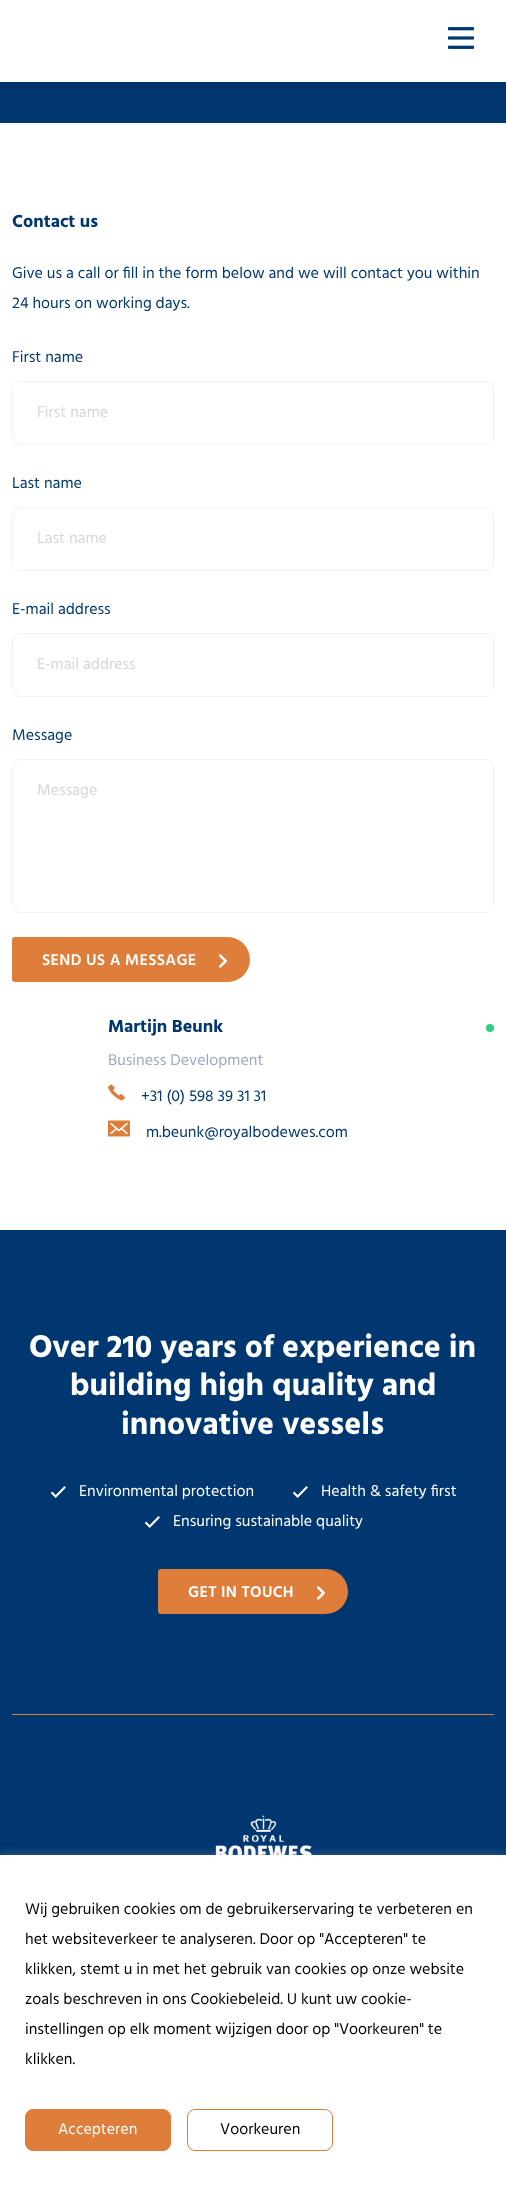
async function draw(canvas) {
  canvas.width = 506;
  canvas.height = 2191;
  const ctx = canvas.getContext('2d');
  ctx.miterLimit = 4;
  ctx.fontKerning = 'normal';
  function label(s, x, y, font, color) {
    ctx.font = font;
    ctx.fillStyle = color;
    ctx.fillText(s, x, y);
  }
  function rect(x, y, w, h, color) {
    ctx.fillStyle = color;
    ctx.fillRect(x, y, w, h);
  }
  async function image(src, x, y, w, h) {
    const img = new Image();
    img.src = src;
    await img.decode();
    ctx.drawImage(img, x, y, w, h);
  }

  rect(0, 0, 506, 2191, '#fff');
  rect(0, 82, 506, 41, '#003770');
  ctx.fillStyle = '#00000026';
  ctx.filter = 'blur(6px)';
  ctx.beginPath();
  ctx.rect(0, 0, 506, 82);
  ctx.fill();
  ctx.filter = 'none';
  rect(0, 0, 506, 82, '#fff');
  await image('assets/img1.png', 448, 27, 26, 22);
  label('Contact us', 12, 227, 'bold 18px Hind', '#003770');
  label('Give us a call or fill in the form below and we will contact you within', 12, 278, '16px Hind', '#003770');
  label('24 hours on working days.', 12, 308, '16px Hind', '#003770');
  label('First name', 12, 362, '16px Hind', '#003770');
  ctx.beginPath();
  ctx.roundRect(12.5, 381.5, 481, 63, 7.5);
  ctx.strokeStyle = '#eef4fb';
  ctx.stroke();
  label('First name', 37, 417, '16px Hind', '#d6d6d6');
  label('Last name', 12, 488, '16px Hind', '#003770');
  ctx.beginPath();
  ctx.roundRect(12.5, 507.5, 481, 63, 7.5);
  ctx.stroke();
  label('Last name', 37, 543, '16px Hind', '#d6d6d6');
  label('E-mail address', 12, 614, '16px Hind', '#003770');
  ctx.beginPath();
  ctx.roundRect(12.5, 633.5, 481, 63, 7.5);
  ctx.stroke();
  label('E-mail address', 37, 669, '16px Hind', '#d6d6d6');
  label('Message', 12, 740, '16px Hind', '#003770');
  ctx.beginPath();
  ctx.roundRect(12.5, 759.5, 481, 153, 7.5);
  ctx.stroke();
  label('Message', 37, 795, '16px Hind', '#d6d6d6');
  ctx.fillStyle = '#df7e3a';
  ctx.beginPath();
  ctx.roundRect(12, 937, 238, 45, [3, 22.5, 22.5, 3]);
  ctx.fill();
  ctx.letterSpacing = '0.3px';
  label('SEND US A MESSAGE', 42, 965, '600 16px Hind', '#fff');
  await image('assets/img2.png', 218, 954, 10, 14);
  ctx.letterSpacing = '0px';
  label('Martijn Beunk', 108, 1032, 'bold 18px Hind', '#003770');
  ctx.fillStyle = '#30cf83';
  ctx.beginPath();
  ctx.arc(490, 1028, 4, 0, 2 * Math.PI);
  ctx.fill();
  label('Business Development', 108, 1065, '16px Hind', '#9aabc2');
  await image('assets/img3.png', 108, 1084, 17, 17);
  label('+31 (0) 598 39 31 31', 141, 1101, '16px Hind', '#003770');
  await image('assets/img4.png', 108, 1120, 22, 17);
  label('m.beunk@royalbodewes.com', 146, 1137, '16px Hind', '#003770');
  rect(0, 1230, 506, 625, '#003770');
  rect(12, 1714, 482, 1, '#df7e3a');
  label('Over 210 years of experience in', 29, 1357, 'bold 32px Hind', '#fff');
  label('building high quality and', 70, 1395, 'bold 32px Hind', '#fff');
  label('innovative vessels', 121, 1434, 'bold 32px Hind', '#fff');
  await image('assets/img5.png', 51, 1486, 15, 12);
  label('Environmental protection', 79, 1496, '16px Hind', '#fff');
  await image('assets/img5.png', 293, 1486, 15, 12);
  label('Health & safety first', 321, 1496, '16px Hind', '#fff');
  await image('assets/img5.png', 145, 1516, 15, 12);
  label('Ensuring sustainable quality', 173, 1526, '16px Hind', '#fff');
  ctx.fillStyle = '#df7e3a';
  ctx.beginPath();
  ctx.roundRect(158, 1569, 190, 45, [3, 22.5, 22.5, 3]);
  ctx.fill();
  ctx.letterSpacing = '0.3px';
  label('GET IN TOUCH', 188, 1597, '600 16px Hind', '#fff');
  await image('assets/img2.png', 316, 1586, 10, 14);
  await image('assets/img6.png', 215, 1815, 97, 40);
  ctx.fillStyle = '#acabab4d';
  ctx.filter = 'blur(5px)';
  ctx.beginPath();
  ctx.rect(0, 1854, 506, 336);
  ctx.fill();
  ctx.filter = 'none';
  rect(0, 1855, 506, 336, '#fff');
  ctx.letterSpacing = '0px';
  label('Wij gebruiken cookies om de gebruikerservaring te verbeteren en', 25, 1914, '16px Hind', '#000');
  label('het websiteverkeer te analyseren. Door op "Accepteren" te', 25, 1944, '16px Hind', '#000');
  label('klikken, stemt u in met het gebruik van cookies op onze website', 25, 1974, '16px Hind', '#000');
  label('zoals beschreven in ons Cookiebeleid. U kunt uw cookie-', 25, 2004, '16px Hind', '#000');
  label('instellingen op elk moment wijzigen door op "Voorkeuren" te', 25, 2034, '16px Hind', '#000');
  label('klikken.', 25, 2064, '16px Hind', '#000');
  ctx.fillStyle = '#df7e3a';
  ctx.beginPath();
  ctx.roundRect(25.5, 2109.5, 145, 41, 7.5);
  ctx.fill();
  ctx.strokeStyle = '#df7e3a';
  ctx.stroke();
  label('Accepteren', 58, 2134, '16px Hind', '#fff');
  ctx.beginPath();
  ctx.roundRect(187.5, 2109.5, 145, 41, 7.5);
  ctx.stroke();
  label('Voorkeuren', 220, 2134, '16px Hind', '#000');
}

draw(document.querySelector('canvas'));
